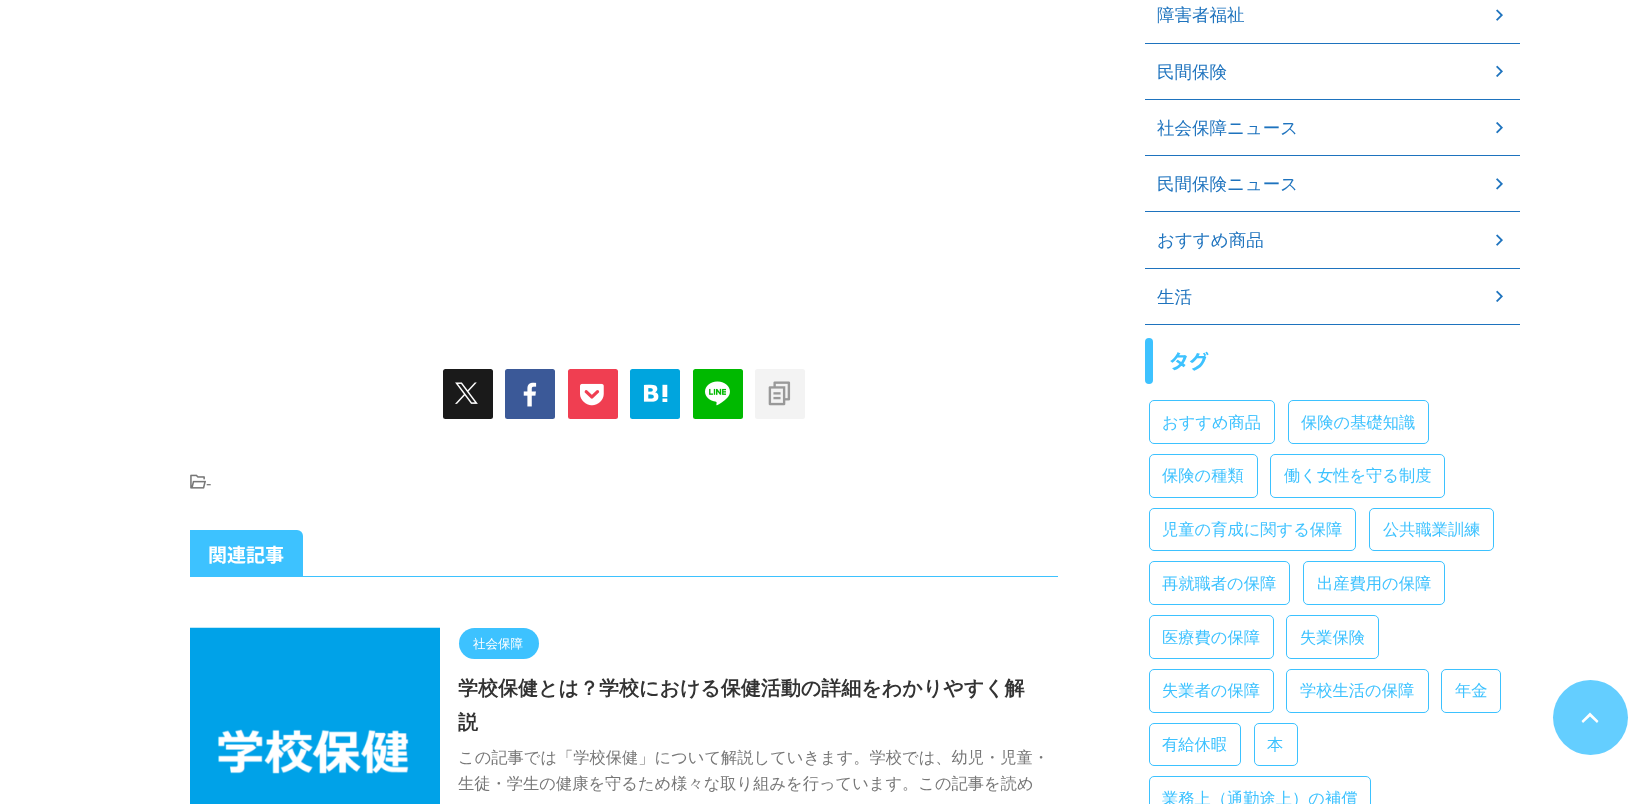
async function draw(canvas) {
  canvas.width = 1646;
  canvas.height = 804;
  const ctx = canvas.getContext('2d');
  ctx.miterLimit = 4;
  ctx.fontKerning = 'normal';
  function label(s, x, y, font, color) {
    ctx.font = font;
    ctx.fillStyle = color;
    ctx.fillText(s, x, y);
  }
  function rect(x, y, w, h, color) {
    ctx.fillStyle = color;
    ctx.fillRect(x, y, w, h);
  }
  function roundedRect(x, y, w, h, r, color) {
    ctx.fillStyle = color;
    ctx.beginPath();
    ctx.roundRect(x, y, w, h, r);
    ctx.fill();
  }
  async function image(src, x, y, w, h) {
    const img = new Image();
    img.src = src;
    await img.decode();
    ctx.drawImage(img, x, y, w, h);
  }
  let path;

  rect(0, 0, 1646, 804, '#fff');
  roundedRect(443, 369, 50, 50, 2.5, '#1a1a1a');
  await image('assets/img1.png', 455, 382, 23, 22);
  roundedRect(505, 369, 50, 50, 2.5, '#3b5998');
  await image('assets/img2.png', 523, 382, 14, 25);
  roundedRect(568, 369, 50, 50, 2.5, '#f03e51');
  await image('assets/img3.png', 580, 383, 24, 23);
  roundedRect(630, 369, 50, 50, 2.5, '#00a5de');
  await image('assets/img4.png', 643, 384, 25, 18);
  roundedRect(693, 369, 50, 50, 2.5, '#00b900');
  await image('assets/img5.png', 705, 381, 25, 25);
  roundedRect(755, 369, 50, 50, 2.5, '#f3f3f3');
  await image('assets/img6.png', 768, 381, 23, 25);
  await image('assets/img7.png', 190, 474, 16, 15);
  label('-', 206, 489, '16.25px Liberation Sans', '#777');
  rect(190, 576, 868, 1, '#3dc2ff');
  ctx.beginPath();
  ctx.roundRect(190, 530, 113, 46, [0, 6, 0, 0]);
  ctx.fill();
  label('関連記事', 208, 562, 'bold 19px Noto Sans JP', '#fff');
  await image('assets/img8.png', 190, 627, 250, 177);
  roundedRect(459, 628, 80, 31, 15.5, '#3dc2ff');
  label('社会保障', 473, 648, '500 12.5px WenQuanYi Zen Hei', '#fff');
  label('学校保健とは？学校における保健活動の詳細をわかりやすく解', 458, 695, 'bold 20px WenQuanYi Zen Hei', '#333');
  label('説', 458, 729, 'bold 20px WenQuanYi Zen Hei', '#333');
  label('この記事では「学校保健」について解説していきます。学校では、幼児・児童・', 458, 763, '500 16.25px WenQuanYi Zen Hei', '#777');
  label('生徒・学生の健康を守るため様々な取り組みを行っています。この記事を読め', 458, 789, '500 16.25px WenQuanYi Zen Hei', '#777');
  rect(1145, 43, 375, 1, '#1e73be');
  label('障害者福祉', 1157, 21, '500 17.5px WenQuanYi Zen Hei', '#1e73be');
  await image('assets/img9.png', 1496, 9, 7, 12);
  rect(1145, 99, 375, 1, '#1e73be');
  label('民間保険', 1157, 78, '500 17.5px WenQuanYi Zen Hei', '#1e73be');
  await image('assets/img10.png', 1496, 65, 7, 12);
  rect(1145, 155, 375, 1, '#1e73be');
  label('社会保障ニュース', 1157, 134, '500 17.5px WenQuanYi Zen Hei', '#1e73be');
  await image('assets/img11.png', 1496, 122, 7, 12);
  rect(1145, 211, 375, 1, '#1e73be');
  label('民間保険ニュース', 1157, 190, '500 17.5px WenQuanYi Zen Hei', '#1e73be');
  await image('assets/img12.png', 1496, 178, 7, 12);
  rect(1145, 268, 375, 1, '#1e73be');
  label('おすすめ商品', 1157, 246, '500 17.5px WenQuanYi Zen Hei', '#1e73be');
  await image('assets/img9.png', 1496, 234, 7, 12);
  rect(1145, 324, 375, 1, '#1e73be');
  label('生活', 1157, 303, '500 17.5px WenQuanYi Zen Hei', '#1e73be');
  await image('assets/img10.png', 1496, 290, 7, 12);
  roundedRect(1145, 338, 8, 46, 4, '#3dc2ff');
  label('タグ', 1169, 369, 'bold 20px Noto Sans JP', '#3dc2ff');
  ctx.beginPath();
  ctx.roundRect(1149.5, 400.5, 125, 43, 4.5);
  ctx.strokeStyle = '#3dc2ff';
  ctx.stroke();
  label('おすすめ商品', 1162, 428, '500 16.25px WenQuanYi Zen Hei', '#3dc2ff');
  ctx.beginPath();
  ctx.roundRect(1288.5, 400.5, 140, 43, 4.5);
  ctx.stroke();
  label('保険の基礎知識', 1301, 428, '500 16.25px WenQuanYi Zen Hei', '#3dc2ff');
  ctx.beginPath();
  ctx.roundRect(1149.5, 454.5, 108, 43, 4.5);
  ctx.stroke();
  label('保険の種類', 1162, 481, '500 16.25px WenQuanYi Zen Hei', '#3dc2ff');
  ctx.beginPath();
  ctx.roundRect(1270.5, 454.5, 174, 43, 4.5);
  ctx.stroke();
  label('働く女性を守る制度', 1284, 481, '500 16.25px WenQuanYi Zen Hei', '#3dc2ff');
  ctx.beginPath();
  ctx.roundRect(1149.5, 508.5, 206, 42, 4.5);
  ctx.stroke();
  label('児童の育成に関する保障', 1162, 535, '500 16.25px WenQuanYi Zen Hei', '#3dc2ff');
  ctx.beginPath();
  ctx.roundRect(1369.5, 508.5, 124, 42, 4.5);
  ctx.stroke();
  label('公共職業訓練', 1383, 535, '500 16.25px WenQuanYi Zen Hei', '#3dc2ff');
  ctx.beginPath();
  ctx.roundRect(1149.5, 561.5, 140, 43, 4.5);
  ctx.stroke();
  label('再就職者の保障', 1162, 589, '500 16.25px WenQuanYi Zen Hei', '#3dc2ff');
  ctx.beginPath();
  ctx.roundRect(1303.5, 561.5, 141, 43, 4.5);
  ctx.stroke();
  label('出産費用の保障', 1317, 589, '500 16.25px WenQuanYi Zen Hei', '#3dc2ff');
  ctx.beginPath();
  ctx.roundRect(1149.5, 615.5, 124, 43, 4.5);
  ctx.stroke();
  label('医療費の保障', 1162, 643, '500 16.25px WenQuanYi Zen Hei', '#3dc2ff');
  ctx.beginPath();
  ctx.roundRect(1286.5, 615.5, 92, 43, 4.5);
  ctx.stroke();
  label('失業保険', 1300, 643, '500 16.25px WenQuanYi Zen Hei', '#3dc2ff');
  ctx.beginPath();
  ctx.roundRect(1149.5, 669.5, 124, 43, 4.5);
  ctx.stroke();
  label('失業者の保障', 1162, 696, '500 16.25px WenQuanYi Zen Hei', '#3dc2ff');
  ctx.beginPath();
  ctx.roundRect(1286.5, 669.5, 142, 43, 4.5);
  ctx.stroke();
  label('学校生活の保障', 1300, 696, '500 16.25px WenQuanYi Zen Hei', '#3dc2ff');
  ctx.beginPath();
  ctx.roundRect(1441.5, 669.5, 59, 43, 4.5);
  ctx.stroke();
  label('年金', 1455, 696, '500 16.25px WenQuanYi Zen Hei', '#3dc2ff');
  ctx.beginPath();
  ctx.roundRect(1149.5, 723.5, 91, 42, 4.5);
  ctx.stroke();
  label('有給休暇', 1162, 750, '500 16.25px WenQuanYi Zen Hei', '#3dc2ff');
  ctx.beginPath();
  ctx.roundRect(1254.5, 723.5, 43, 42, 4.5);
  ctx.stroke();
  label('本', 1267, 750, '500 16.25px WenQuanYi Zen Hei', '#3dc2ff');
  ctx.beginPath();
  ctx.roundRect(1149.5, 776.5, 221, 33, 4.5);
  ctx.stroke();
  label('業務上（通勤途上）の補償', 1162, 804, '500 16.25px WenQuanYi Zen Hei', '#3dc2ff');
  ctx.fillStyle = '#64ceff';
  ctx.beginPath();
  ctx.arc(1590.5, 717.5, 37.5, 0, 2 * Math.PI);
  ctx.fill();
  ctx.fillStyle = '#fff';
  path = new Path2D('M1590 716.5L1583 723L1581.5 721L1590 712.5L1598.5 721L1597 723Z');
  ctx.fill(path);
}

draw(document.querySelector('canvas'));
